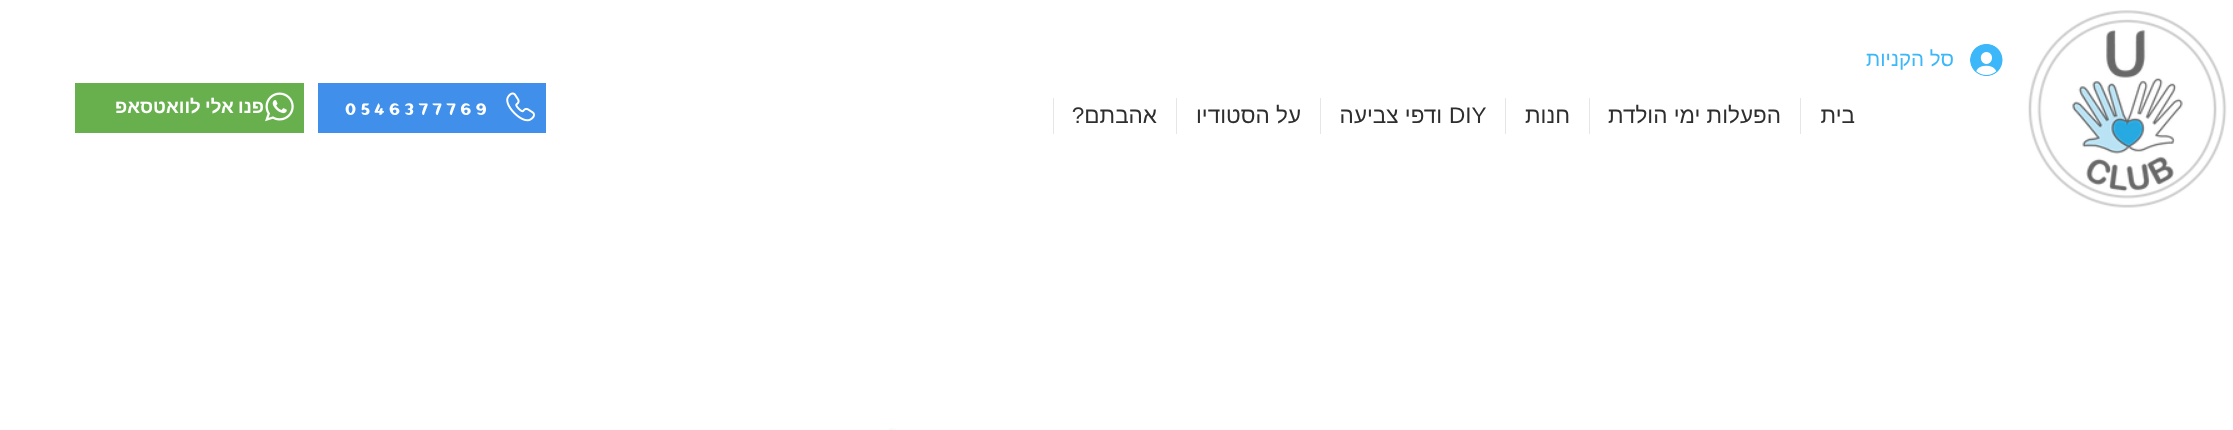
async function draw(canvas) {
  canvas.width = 2233;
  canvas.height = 430;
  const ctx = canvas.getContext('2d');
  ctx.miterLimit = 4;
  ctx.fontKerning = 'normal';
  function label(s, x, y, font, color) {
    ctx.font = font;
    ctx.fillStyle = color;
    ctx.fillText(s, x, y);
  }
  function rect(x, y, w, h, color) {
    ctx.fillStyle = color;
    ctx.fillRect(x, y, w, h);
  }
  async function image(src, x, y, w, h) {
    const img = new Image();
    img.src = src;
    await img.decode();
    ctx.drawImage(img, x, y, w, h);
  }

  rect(0, 0, 2233, 430, '#fff');
  await image('assets/img1.png', 2028, 10, 199, 198);
  await image('assets/img2.png', 1970, 44, 33, 32);
  ctx.direction = 'rtl';
  label('סל', 1954, 66, '20.5px Liberation Sans', '#3cb7fa');
  label('הקניות', 1924, 66, '20.5px Liberation Sans', '#3cb7fa');
  rect(1800, 98, 1, 36, '#e6e6e6');
  label('בית', 1855, 123, '22.5px Liberation Sans', '#2f2e2e');
  rect(1589, 98, 1, 36, '#e6e6e6');
  label('הפעלות ימי הולדת', 1781, 123, '22.5px Liberation Sans', '#2f2e2e');
  rect(1505, 98, 1, 36, '#e6e6e6');
  label('חנות', 1570, 123, '22.5px Liberation Sans', '#2f2e2e');
  rect(1320, 98, 1, 36, '#e6e6e6');
  ctx.direction = 'ltr';
  label('DIY', 1449, 123, '22.5px Liberation Sans', '#2f2e2e');
  ctx.direction = 'rtl';
  label('ודפי צביעה', 1442, 123, '22.5px Liberation Sans', '#2f2e2e');
  rect(1176, 98, 1, 36, '#e6e6e6');
  label('על הסטודיו', 1301, 123, '22.5px Liberation Sans', '#2f2e2e');
  rect(1053, 98, 1, 36, '#e6e6e6');
  label('אהבתם?', 1157, 123, '22.5px Liberation Sans', '#2f2e2e');
  rect(318, 83, 228, 50, '#3f8feb');
  await image('assets/img3.png', 506, 92, 29, 30);
  ctx.letterSpacing = '4.5px';
  ctx.direction = 'ltr';
  label('0546377769', 345, 115, '500 22.5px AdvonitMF', '#fff');
  rect(75, 83, 229, 50, '#68b04d');
  await image('assets/img4.png', 265, 92, 29, 30);
  ctx.letterSpacing = '0px';
  ctx.wordSpacing = '-1px';
  ctx.direction = 'rtl';
  label('פנו אלי לוואטסאפ', 264, 113, 'bold 18.75px Liberation Sans', '#fff');
  await image('assets/img5.png', 888, 428, 8, 2);
}

draw(document.querySelector('canvas'));
